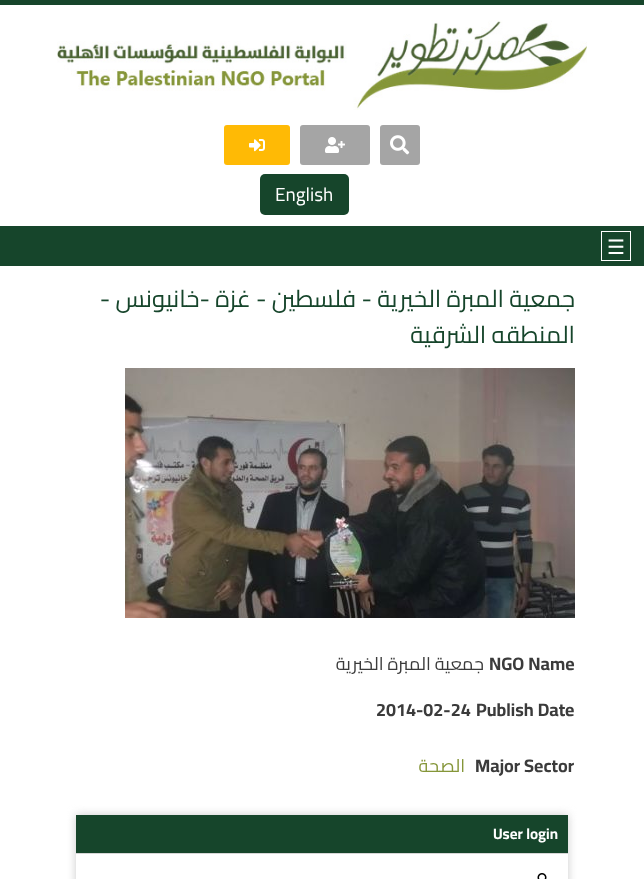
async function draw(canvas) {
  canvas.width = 644;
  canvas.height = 879;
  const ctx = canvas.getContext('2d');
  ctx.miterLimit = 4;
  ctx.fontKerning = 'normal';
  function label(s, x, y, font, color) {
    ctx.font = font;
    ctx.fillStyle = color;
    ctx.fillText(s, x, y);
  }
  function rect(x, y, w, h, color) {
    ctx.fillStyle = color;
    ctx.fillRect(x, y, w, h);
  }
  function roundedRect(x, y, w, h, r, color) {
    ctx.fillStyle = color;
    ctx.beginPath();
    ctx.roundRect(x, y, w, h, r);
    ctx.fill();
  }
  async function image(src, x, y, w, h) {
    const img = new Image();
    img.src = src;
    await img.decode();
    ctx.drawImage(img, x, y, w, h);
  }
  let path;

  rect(0, 0, 644, 879, '#fff');
  rect(0, 0, 644, 5, '#16452b');
  await image('assets/img1.png', 57, 20, 530, 90);
  roundedRect(380, 125, 40, 40, 3, '#a5a5a5');
  await image('assets/img2.png', 390, 135, 20, 20);
  roundedRect(300, 125, 70, 40, 3, '#a5a5a5');
  await image('assets/img3.png', 325, 137, 20, 16);
  roundedRect(224, 125, 66, 40, 3, '#ffba05');
  await image('assets/img4.png', 249, 139, 16, 13);
  roundedRect(260, 174, 89, 41, 5, '#16452b');
  label('English', 275, 201, '19px Cairo', '#fff');
  rect(0, 226, 644, 40, '#16452b');
  ctx.strokeStyle = '#fff';
  ctx.strokeRect(601.5, 231.5, 29, 29);
  label('☰', 607, 254, '20px DejaVu Sans', '#fff');
  ctx.direction = 'rtl';
  label('جمعية المبرة الخيرية - فلسطين - غزة -خانيونس -', 575, 307, '24px Cairo', '#16452b');
  label('المنطقه الشرقية', 575, 343, '24px Cairo', '#16452b');
  await image('assets/img5.png', 125, 368, 450, 250);
  ctx.direction = 'ltr';
  label('NGO Name', 489, 670, 'bold 18px Cairo', '#3b3b3b');
  ctx.direction = 'rtl';
  label('جمعية المبرة الخيرية', 484, 670, '18px Cairo', '#3b3b3b');
  ctx.direction = 'ltr';
  label('Publish Date', 476, 716, 'bold 18px Cairo', '#3b3b3b');
  label('2014-02-24', 376, 716, 'bold 18px Cairo', '#3b3b3b');
  label('Major Sector', 475, 772, 'bold 18px Cairo', '#3b3b3b');
  ctx.direction = 'rtl';
  label('الصحة', 465, 772, '18px Cairo', '#859639');
  ctx.save();
  path = new Path2D('M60 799H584V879H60ZM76 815H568V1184H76Z');
  ctx.clip(path, 'evenodd');
  ctx.fillStyle = '#ccc';
  ctx.filter = 'blur(5px)';
  ctx.beginPath();
  ctx.rect(76, 815, 492, 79);
  ctx.fill();
  ctx.filter = 'none';
  ctx.restore();
  rect(76, 815, 492, 38, '#16452b');
  rect(76, 853, 492, 1, '#d6d6d6');
  ctx.direction = 'ltr';
  label('User login', 493, 839, 'bold 15px Cairo', '#fff');
  await image('assets/img6.png', 537, 873, 10, 6);
}

draw(document.querySelector('canvas'));
